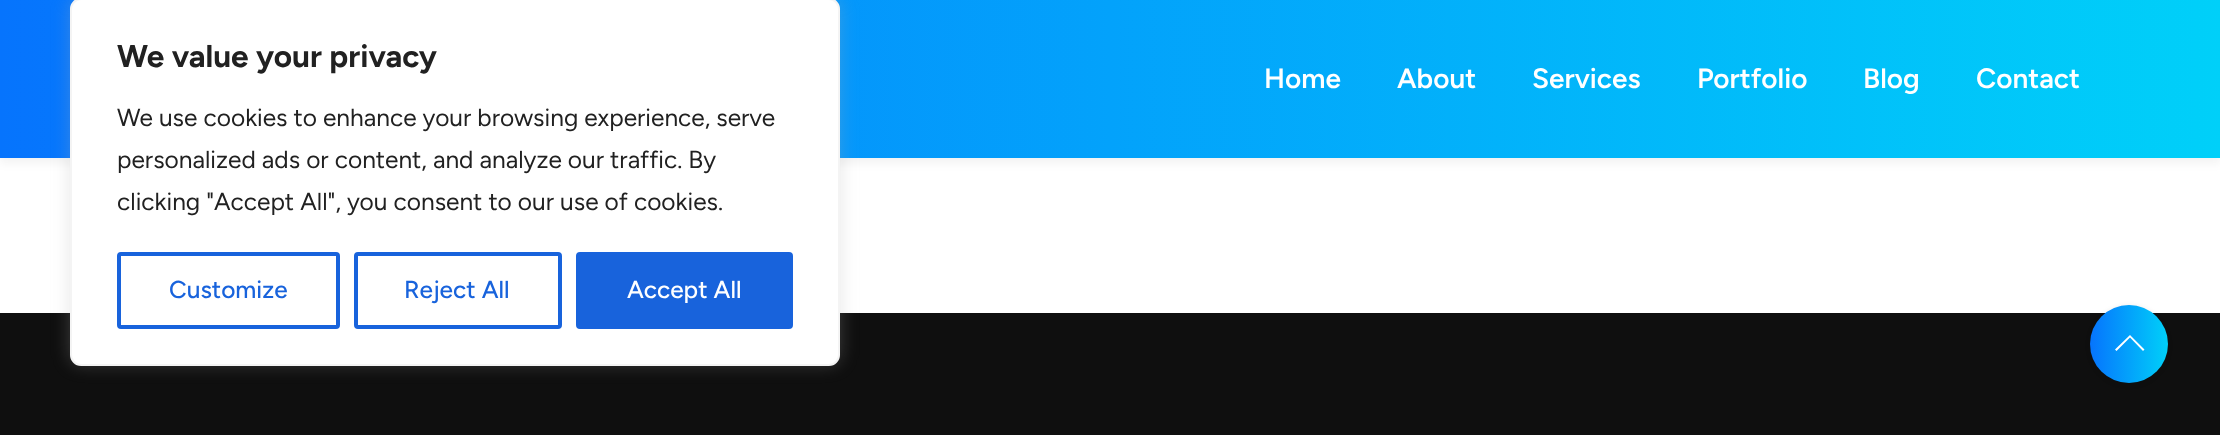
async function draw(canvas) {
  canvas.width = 2220;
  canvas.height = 435;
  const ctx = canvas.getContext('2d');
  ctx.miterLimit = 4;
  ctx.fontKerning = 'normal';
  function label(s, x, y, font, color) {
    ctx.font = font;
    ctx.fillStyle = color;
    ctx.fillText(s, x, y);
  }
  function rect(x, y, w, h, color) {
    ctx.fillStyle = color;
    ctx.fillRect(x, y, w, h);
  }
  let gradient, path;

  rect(0, 0, 2220, 435, '#fff');
  ctx.fillStyle = '#0000000d';
  ctx.filter = 'blur(5px)';
  ctx.beginPath();
  ctx.rect(0, 5, 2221, 158);
  ctx.fill();
  ctx.filter = 'none';
  gradient = ctx.createLinearGradient(0, 79, 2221, 79);
  gradient.addColorStop(0, '#0674fd');
  gradient.addColorStop(1, '#00d0f9');
  ctx.fillStyle = gradient;
  ctx.fillRect(0, 0, 2220, 158);
  rect(0, 313, 2220, 122, '#0f0f0f');
  ctx.fillStyle = '#acabab4d';
  ctx.filter = 'blur(9px)';
  ctx.beginPath();
  ctx.roundRect(70, -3, 770, 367, 11);
  ctx.fill();
  ctx.filter = 'none';
  ctx.fillStyle = '#fff';
  ctx.beginPath();
  ctx.roundRect(71, -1, 768, 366, 10);
  ctx.fill();
  ctx.strokeStyle = '#f4f4f4';
  ctx.lineWidth = 2;
  ctx.stroke();
  label('We value your privacy', 117, 67, 'bold 31.5px Figtree', '#212121');
  label('We use cookies to enhance your browsing experience, serve', 117, 126, '24.5px Figtree', '#212121');
  label('personalized ads or content, and analyze our traffic. By', 117, 168, '24.5px Figtree', '#212121');
  label('clicking "Accept All", you consent to our use of cookies.', 117, 210, '24.5px Figtree', '#212121');
  ctx.beginPath();
  ctx.roundRect(119, 254, 219, 73, 2);
  ctx.strokeStyle = '#1863dc';
  ctx.lineWidth = 4;
  ctx.stroke();
  label('Customize', 169, 298, '500 24.5px Figtree', '#1863dc');
  ctx.beginPath();
  ctx.roundRect(356, 254, 204, 73, 2);
  ctx.stroke();
  label('Reject All', 404, 298, '500 24.5px Figtree', '#1863dc');
  ctx.beginPath();
  ctx.roundRect(578, 254, 213, 73, 2);
  ctx.fill();
  ctx.stroke();
  label('Accept All', 627, 298, '500 24.5px Figtree', '#fff');
  label('Home', 1264, 88, '600 28px Figtree', '#fff');
  label('About', 1397, 88, '600 28px Figtree', '#fff');
  label('Services', 1532, 88, '600 28px Figtree', '#fff');
  label('Portfolio', 1697, 88, '600 28px Figtree', '#fff');
  label('Blog', 1863, 88, '600 28px Figtree', '#fff');
  label('Contact', 1976, 88, '600 28px Figtree', '#fff');
  ctx.fillStyle = '#0000001a';
  ctx.filter = 'blur(2.5px)';
  ctx.beginPath();
  ctx.roundRect(2090, 306, 78, 79, 39);
  ctx.fill();
  ctx.filter = 'none';
  gradient = ctx.createLinearGradient(2090, 344, 2168, 344);
  gradient.addColorStop(0, '#0674fd');
  gradient.addColorStop(1, '#00d0f9');
  ctx.fillStyle = gradient;
  ctx.beginPath();
  ctx.arc(2129, 344, 39, 0, 2 * Math.PI);
  ctx.fill();
  ctx.fillStyle = '#fff';
  path = new Path2D('M2144.5 349.5L2143 351L2130 337.5L2116.5 351L2115 349.5L2130 335Z');
  ctx.fill(path);
}

draw(document.querySelector('canvas'));
